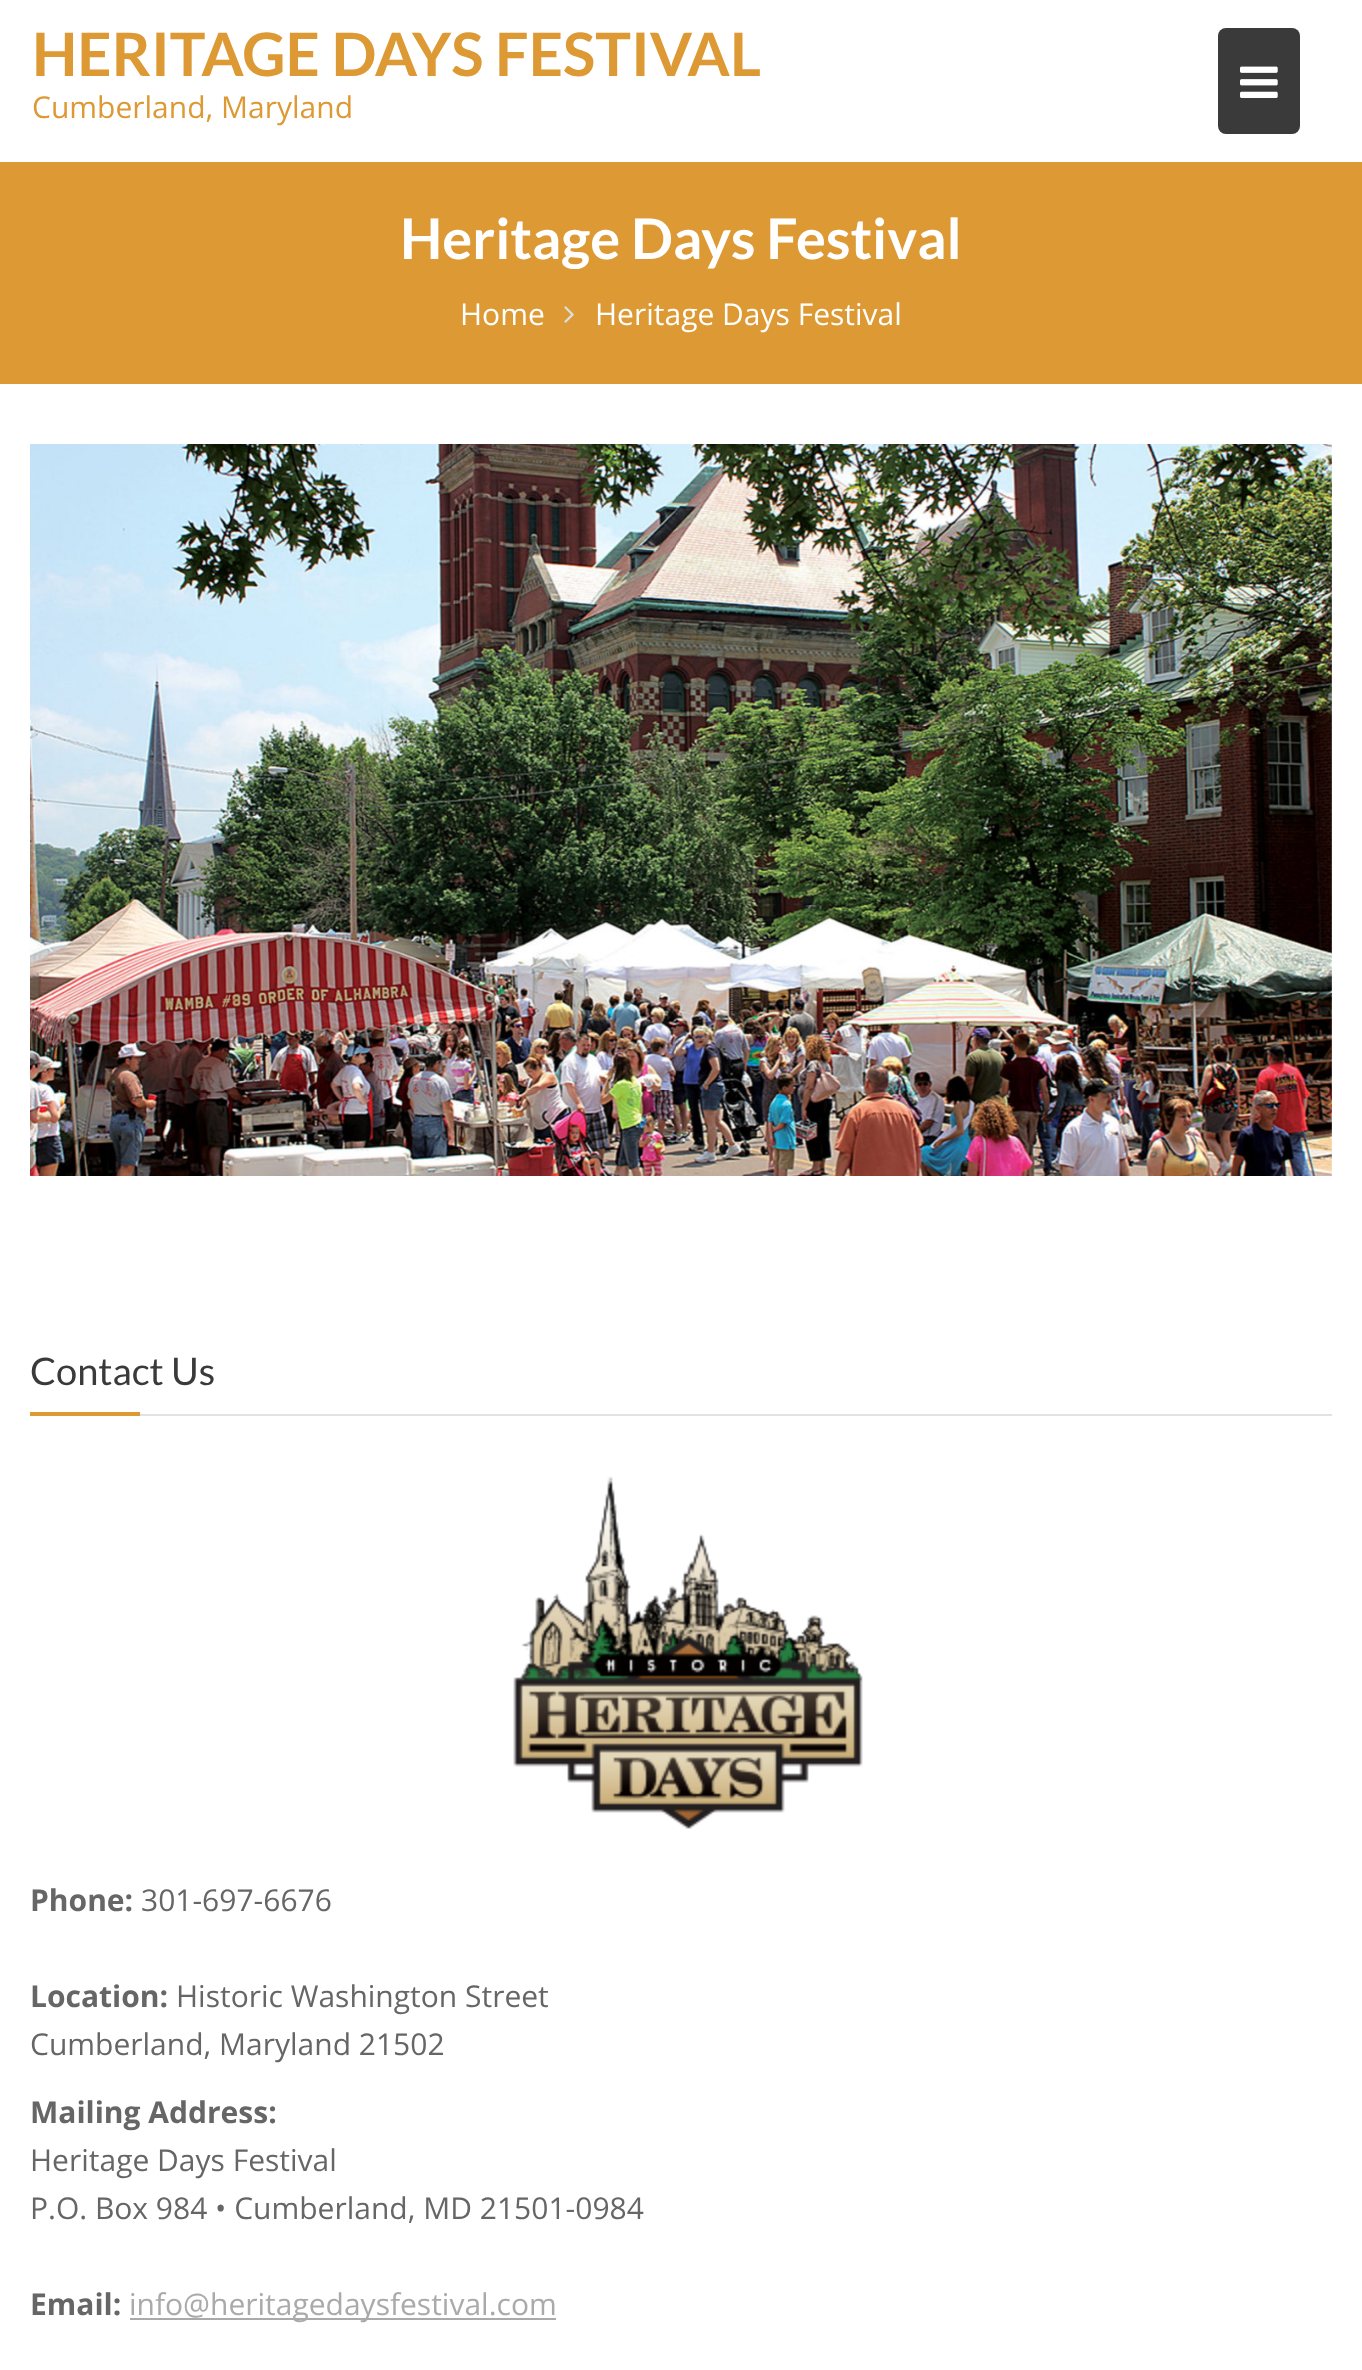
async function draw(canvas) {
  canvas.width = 1362;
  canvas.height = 2370;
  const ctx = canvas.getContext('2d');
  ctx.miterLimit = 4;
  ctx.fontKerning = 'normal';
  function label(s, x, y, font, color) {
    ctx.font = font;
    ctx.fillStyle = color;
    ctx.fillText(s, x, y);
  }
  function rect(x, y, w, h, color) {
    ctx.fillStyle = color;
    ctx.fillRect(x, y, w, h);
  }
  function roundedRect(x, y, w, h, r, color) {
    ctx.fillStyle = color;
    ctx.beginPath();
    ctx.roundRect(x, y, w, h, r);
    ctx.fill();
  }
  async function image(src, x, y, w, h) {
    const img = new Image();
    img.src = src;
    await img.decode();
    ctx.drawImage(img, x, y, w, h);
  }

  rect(0, 0, 1362, 2370, '#fff');
  label('HERITAGE DAYS FESTIVAL', 32, 76, 'bold 60px Lato', '#d93');
  roundedRect(1218, 28, 82, 106, 8, '#3a3a3a');
  await image('assets/img1.png', 1240, 66, 38, 32);
  label('Cumberland, Maryland', 32, 118, '30px Open Sans', '#d93');
  rect(0, 162, 1362, 222, '#dd9934');
  label('Heritage Days Festival', 400, 259, 'bold 56px Lato', '#fff');
  label('Home', 460, 325, '30px Open Sans', '#fff');
  await image('assets/img2.png', 564, 306, 10, 17);
  label('Heritage Days Festival', 595, 325, '30px Open Sans', '#fff');
  await image('assets/img3.png', 30, 444, 1302, 732);
  rect(140, 1414, 1192, 2, '#e2e2e2');
  label('Contact Us', 30, 1385, '38px Lato', '#3a3a3a');
  rect(30, 1412, 110, 4, '#d93');
  await image('assets/img4.png', 513, 1476, 350, 353);
  label('Phone:', 30, 1911, 'bold 30px Open Sans', '#666');
  label('301-697-6676', 141, 1911, '30px Open Sans', '#666');
  label('Location:', 30, 2007, 'bold 30px Open Sans', '#666');
  label('Historic Washington Street', 176, 2007, '30px Open Sans', '#666');
  label('Cumberland, Maryland 21502', 30, 2055, '30px Open Sans', '#666');
  label('Mailing Address:', 30, 2123, 'bold 30px Open Sans', '#666');
  label('Heritage Days Festival', 30, 2171, '30px Open Sans', '#666');
  label('P.O. Box 984 • Cumberland, MD 21501-0984', 30, 2219, '30px Open Sans', '#666');
  label('Email:', 30, 2315, 'bold 30px Open Sans', '#666');
  rect(130, 2318, 426, 2, '#aaa');
  label('info@heritagedaysfestival.com', 129, 2315, '30px Open Sans', '#aaa');
}

draw(document.querySelector('canvas'));
